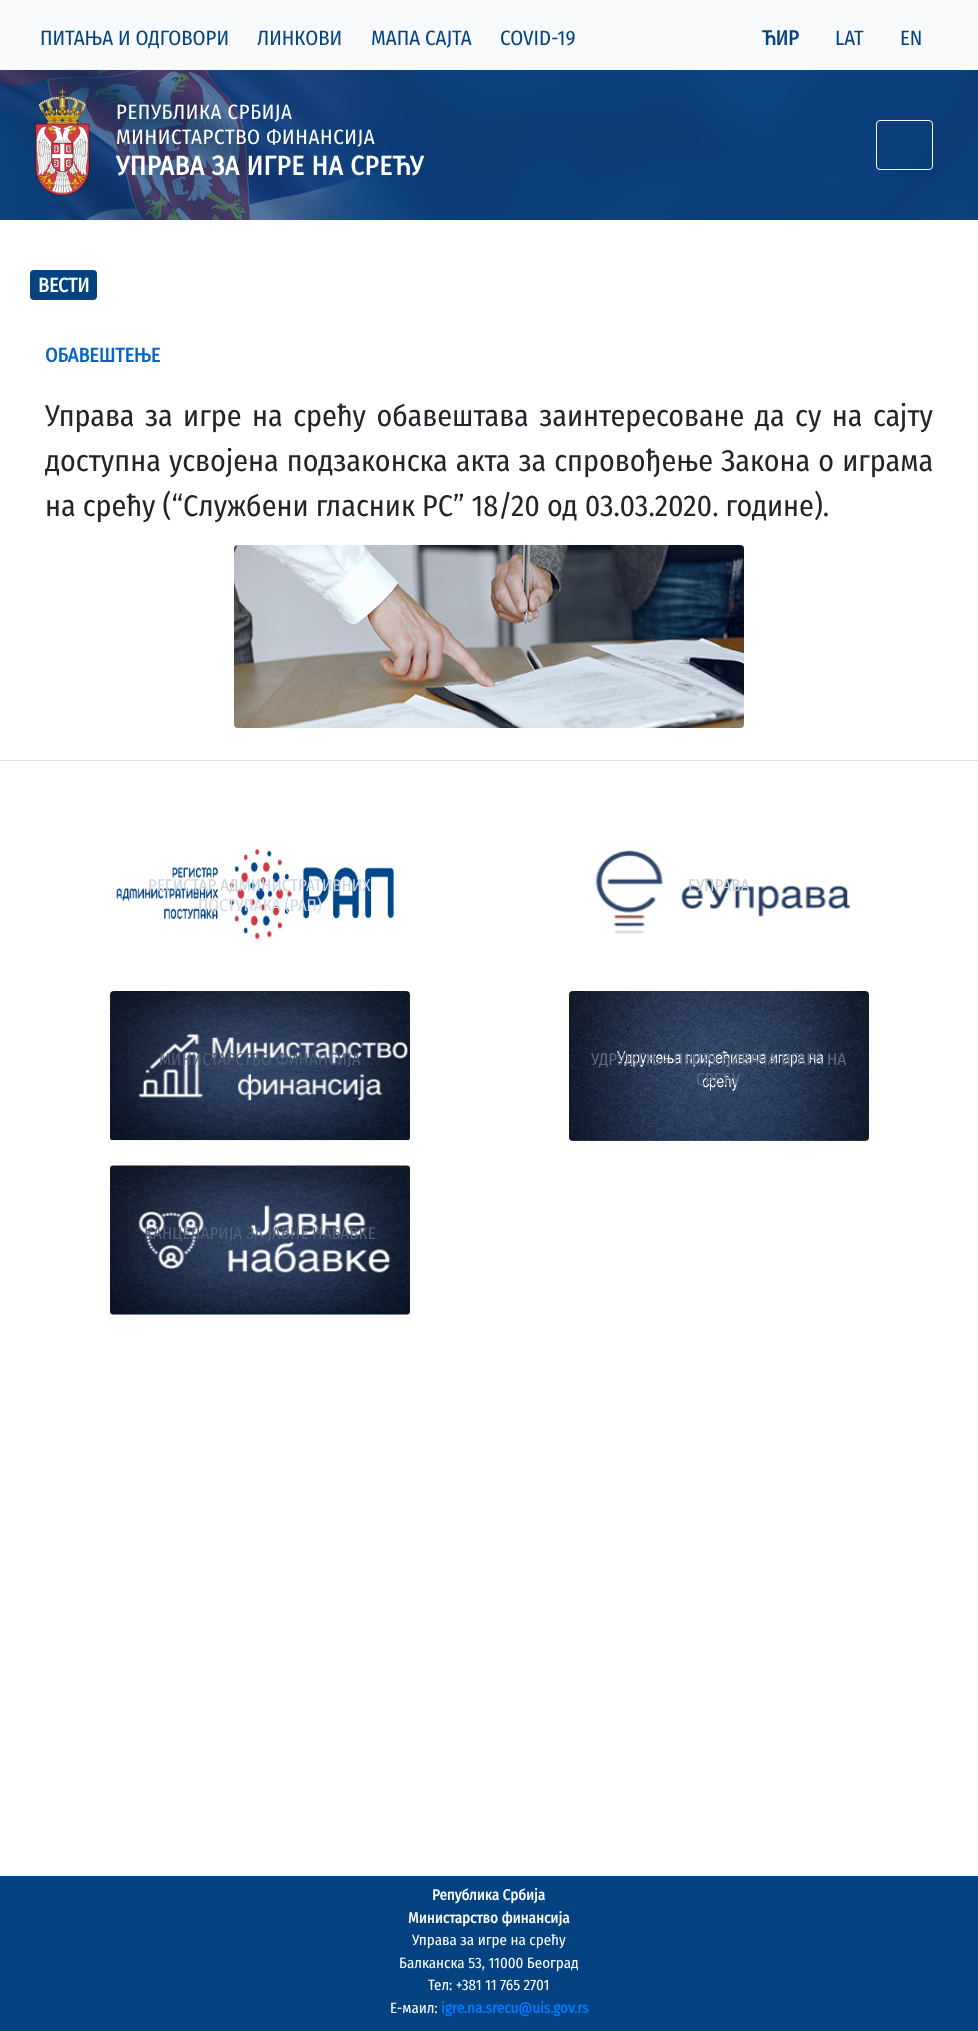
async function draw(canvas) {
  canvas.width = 978;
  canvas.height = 2031;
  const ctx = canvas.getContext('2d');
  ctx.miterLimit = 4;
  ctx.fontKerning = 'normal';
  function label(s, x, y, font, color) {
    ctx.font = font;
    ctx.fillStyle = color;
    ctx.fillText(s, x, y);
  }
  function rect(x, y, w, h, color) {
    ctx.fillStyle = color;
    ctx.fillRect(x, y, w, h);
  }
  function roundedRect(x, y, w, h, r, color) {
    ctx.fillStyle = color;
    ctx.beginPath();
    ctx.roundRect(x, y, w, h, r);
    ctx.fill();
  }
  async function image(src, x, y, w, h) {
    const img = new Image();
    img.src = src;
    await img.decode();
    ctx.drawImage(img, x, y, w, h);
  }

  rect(0, 0, 978, 2031, '#fff');
  rect(0, 0, 978, 70, '#f8f9fa');
  label('ПИТАЊА И ОДГОВОРИ', 40, 45, '20.75px Fira Sans Condensed', '#054282');
  label('ЛИНКОВИ', 257, 45, '20.75px Fira Sans Condensed', '#054282');
  label('МАПА САЈТА', 371, 45, '20.75px Fira Sans Condensed', '#054282');
  label('COVID-19', 500, 45, '20.75px Fira Sans Condensed', '#054282');
  label('ЋИР', 762, 45, 'bold 20.75px Fira Sans Condensed', '#054282');
  label('LAT', 835, 45, '20.75px Fira Sans Condensed', '#054282');
  label('EN', 900, 45, '20.75px Fira Sans Condensed', '#054282');
  await image('assets/img1.png', 0, 70, 978, 150);
  await image('assets/img2.png', 35, 89, 55, 107);
  ctx.letterSpacing = '0.6px';
  label('РЕПУБЛИКА СРБИЈА', 116, 119, '20.75px Fira Sans Condensed', '#fff');
  label('МИНИСТАРСТВО ФИНАНСИЈА', 116, 144, '20.75px Fira Sans Condensed', '#fff');
  label('УПРАВА ЗА ИГРЕ НА СРЕЋУ', 116, 175, 'bold 27px Fira Sans Condensed', '#fff');
  ctx.beginPath();
  ctx.roundRect(876.5, 120.5, 56, 49, 3.5);
  ctx.strokeStyle = '#f8f8f8';
  ctx.stroke();
  roundedRect(30, 270, 67, 30, 4, '#054282');
  ctx.letterSpacing = '0px';
  label('ВЕСТИ', 38, 292, 'bold 20px Fira Sans Condensed', '#fff');
  label('ОБАВЕШТЕЊЕ', 45, 362, 'bold 20px Fira Sans Condensed', '#0364ca');
  ctx.wordSpacing = '3.4px';
  label('Управа за игре на срећу обавештава заинтересоване да су на сајту', 45, 426, '30px Fira Sans Condensed', '#212529');
  ctx.wordSpacing = '1px';
  label('доступна усвојена подзаконска акта за спровођење Закона о играма', 45, 471, '30px Fira Sans Condensed', '#212529');
  ctx.wordSpacing = '0px';
  label('на срећу (“Службени гласник РС” 18/20 од 03.03.2020. године).', 45, 516, '30px Fira Sans Condensed', '#212529');
  await image('assets/img3.png', 234, 545, 510, 183);
  rect(0, 760, 978, 1, '#dee2e6');
  await image('assets/img4.png', 110, 817, 300, 150);
  label('РЕГИСТАР АДМИНИСТРАТИВНИХ', 148, 891, '17px Fira Sans Condensed', '#cad4e1');
  label('ПОСТУПАКА (РАП)', 198, 911, '17px Fira Sans Condensed', '#d4d8e3');
  await image('assets/img5.png', 569, 817, 300, 150);
  label('ЕУПРАВА', 688, 891, '17px Fira Sans Condensed', '#c9cfd7');
  await image('assets/img6.png', 110, 991, 300, 150);
  label('МИНИСТАРСТВО ФИНАНСИЈА', 159, 1065, '17px Fira Sans Condensed', '#4e5d76');
  await image('assets/img7.png', 569, 991, 300, 150);
  label('УДРУЖЕЊА ПРИРЕЂИВАЧА ИГАРА НА', 591, 1065, '17px Fira Sans Condensed', '#5e6a7f');
  label('СРЕЋУ', 696, 1085, '17px Fira Sans Condensed', '#5c6c86');
  await image('assets/img8.png', 110, 1165, 300, 150);
  label('КАНЦЕЛАРИЈА ЗА ЈАВНЕ НАБАВКЕ', 144, 1239, '17px Fira Sans Condensed', '#546178');
  rect(0, 1876, 978, 155, '#054282');
  label('Република Србија', 432, 1900, 'bold 15px Fira Sans Condensed', '#fff');
  label('Министарство финансија', 408, 1923, 'bold 15px Fira Sans Condensed', '#fff');
  label('Управа за игре на срећу', 412, 1945, '15px Fira Sans Condensed', '#fff');
  label('Балканска 53, 11000 Београд', 399, 1968, '15px Fira Sans Condensed', '#fff');
  label('Тел: +381 11 765 2701', 428, 1990, '15px Fira Sans Condensed', '#fff');
  label('Е-маил:', 390, 2013, '15px Fira Sans Condensed', '#fff');
  label('igre.na.srecu@uis.gov.rs', 441, 2013, 'bold 15px Fira Sans Condensed', '#007bff');
}

draw(document.querySelector('canvas'));
